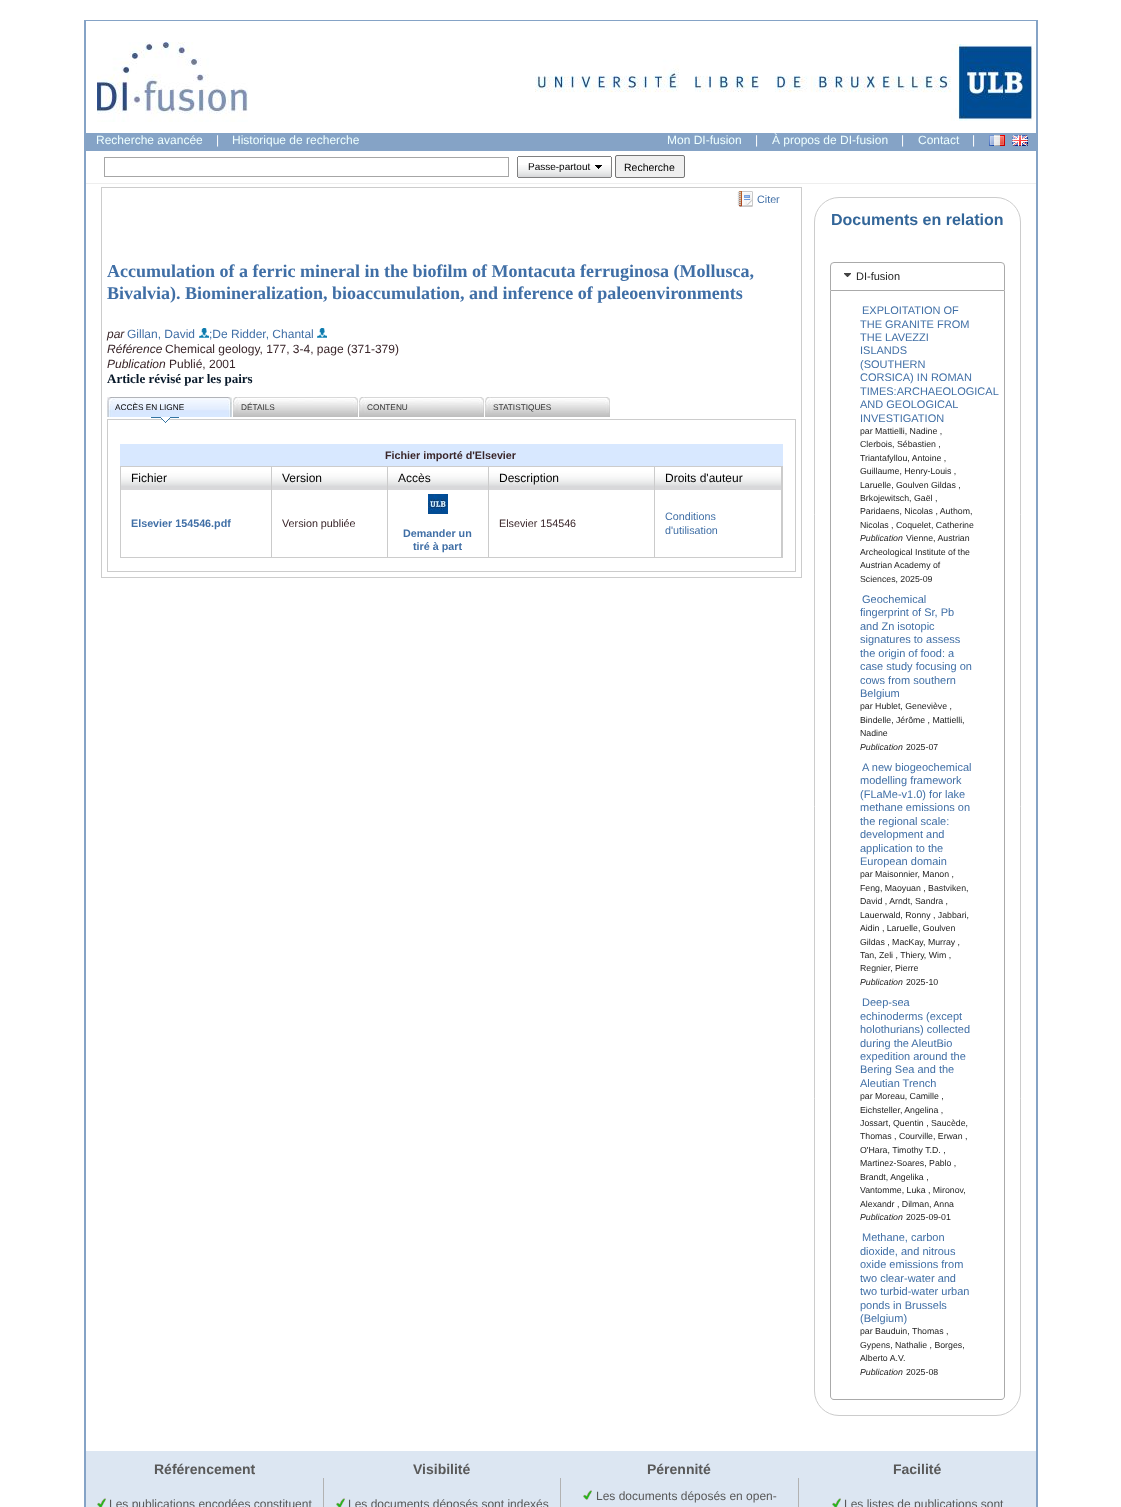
async function draw(canvas) {
  canvas.width = 1121;
  canvas.height = 1507;
  const ctx = canvas.getContext('2d');
  ctx.miterLimit = 4;
  ctx.fontKerning = 'normal';
  function label(s, x, y, font, color) {
    ctx.font = font;
    ctx.fillStyle = color;
    ctx.fillText(s, x, y);
  }
  function rect(x, y, w, h, color) {
    ctx.fillStyle = color;
    ctx.fillRect(x, y, w, h);
  }
  async function image(src, x, y, w, h) {
    const img = new Image();
    img.src = src;
    await img.decode();
    ctx.drawImage(img, x, y, w, h);
  }
  let path;

  rect(0, 0, 1121, 1507, '#fff');
  rect(84, 20, 954, 1487, '#85a3c6');
  rect(86, 21, 950, 1430, '#fff');
  await image('assets/img1.png', 97, 42, 151, 80);
  await image('assets/img2.png', 535, 44, 500, 77);
  rect(86, 133, 950, 18, '#85a3c6');
  label('Recherche avancée', 96, 144, '12px Liberation Sans', '#eff');
  label('|', 216, 144, '12px Liberation Sans', '#fff');
  label('Historique de recherche', 232, 144, '12px Liberation Sans', '#eff');
  label('Mon DI-fusion', 667, 144, '12px Liberation Sans', '#eff');
  label('|', 755, 144, '12px Liberation Sans', '#fff');
  label('À propos de DI-fusion', 772, 144, '12px Liberation Sans', '#eff');
  label('|', 901, 144, '12px Liberation Sans', '#fff');
  label('Contact', 918, 144, '12px Liberation Sans', '#eff');
  label('|', 972, 144, '12px Liberation Sans', '#fff');
  await image('assets/img3.png', 989, 135, 16, 11);
  await image('assets/img4.png', 1012, 135, 16, 11);
  ctx.strokeStyle = '#a6a6a6';
  ctx.strokeRect(104.5, 157.5, 404, 19);
  await image('assets/img5.png', 518, 165, 93, 12);
  rect(518, 156, 93, 1, '#808080');
  rect(518, 177, 93, 1, '#808080');
  rect(611, 157, 1, 20, '#808080');
  rect(517, 157, 1, 20, '#808080');
  await image('assets/img6.png', 595, 165, 7, 4);
  label('Passe-partout', 528, 170, '10px Liberation Sans', '#000');
  ctx.fillStyle = '#efefef';
  ctx.beginPath();
  ctx.roundRect(615.5, 155.5, 69, 22, 1.5);
  ctx.fill();
  ctx.strokeStyle = '#767676';
  ctx.stroke();
  label('Recherche', 624, 171, '10.5px Liberation Sans', '#000');
  rect(86, 183, 950, 1, '#eee');
  ctx.strokeStyle = '#ccc';
  ctx.strokeRect(101.5, 187.5, 700, 390);
  await image('assets/img7.png', 737, 191, 16, 16);
  label('Citer', 757, 203, '10.75px Liberation Sans', '#406fa6');
  label('Accumulation of a ferric mineral in the biofilm of Montacuta ferruginosa (Mollusca,', 107, 277, 'bold 18px Liberation Serif', '#406fa6');
  label('Bivalvia). Biomineralization, bioaccumulation, and inference of paleoenvironments', 107, 299, 'bold 18px Liberation Serif', '#406fa6');
  label('par', 107, 338, 'italic 12px Liberation Sans', '#392529');
  label('Gillan, David', 127, 338, '12px Liberation Sans', '#406fa6');
  await image('assets/img8.png', 199, 328, 10, 10);
  label(';De Ridder, Chantal', 209, 338, '12px Liberation Sans', '#406fa6');
  await image('assets/img8.png', 317, 328, 10, 10);
  label('Référence', 107, 353, 'italic 12px Liberation Sans', '#392529');
  label('Chemical geology, 177, 3-4, page (371-379)', 165, 353, '12px Liberation Sans', '#392529');
  label('Publication', 107, 368, 'italic 12px Liberation Sans', '#392529');
  label('Publié, 2001', 169, 368, '12px Liberation Sans', '#392529');
  label('Article révisé par les pairs', 107, 383, 'bold 13px Liberation Serif', '#071829');
  await image('assets/img9.png', 107, 397, 125, 20);
  label('ACCÈS EN LIGNE', 115, 410, '8.25px Liberation Sans', '#000');
  ctx.strokeRect(107.5, 419.5, 688, 152);
  await image('assets/img10.png', 151, 417, 28, 6);
  await image('assets/img11.png', 233, 397, 125, 20);
  label('DÉTAILS', 241, 410, '8.25px Liberation Sans', '#333');
  await image('assets/img11.png', 359, 397, 125, 20);
  label('CONTENU', 367, 410, '8.25px Liberation Sans', '#333');
  await image('assets/img11.png', 485, 397, 125, 20);
  label('STATISTIQUES', 493, 410, '8.25px Liberation Sans', '#333');
  rect(120, 444, 663, 22, '#d8e8ff');
  label('Fichier importé d\'Elsevier', 385, 459, 'bold 10.75px Liberation Sans', '#392529');
  ctx.strokeRect(120.5, 466.5, 662, 91);
  rect(121, 486, 150, 4, '#d8d8da');
  await image('assets/img12.png', 121, 467, 150, 19);
  rect(271, 467, 1, 90, '#cbcbcb');
  label('Fichier', 131, 482, '12px Liberation Sans', '#000');
  rect(272, 486, 115, 4, '#d8d8da');
  await image('assets/img13.png', 272, 467, 115, 19);
  rect(387, 467, 1, 90, '#cbcbcb');
  label('Version', 282, 482, '12px Liberation Sans', '#000');
  rect(388, 486, 100, 4, '#d8d8da');
  await image('assets/img14.png', 388, 467, 100, 19);
  rect(488, 467, 1, 90, '#cbcbcb');
  label('Accès', 398, 482, '12px Liberation Sans', '#000');
  rect(489, 486, 165, 4, '#d8d8da');
  await image('assets/img15.png', 489, 467, 165, 19);
  rect(654, 467, 1, 90, '#cbcbcb');
  label('Description', 499, 482, '12px Liberation Sans', '#000');
  rect(655, 486, 126, 4, '#d8d8da');
  await image('assets/img16.png', 655, 467, 126, 19);
  rect(781, 467, 1, 90, '#cbcbcb');
  label('Droits d\'auteur', 665, 482, '12px Liberation Sans', '#000');
  label('Elsevier 154546.pdf', 131, 527, 'bold 10.75px Liberation Sans', '#406fa6');
  label('Version publiée', 282, 527, '10.75px Liberation Sans', '#392529');
  label('Elsevier 154546', 499, 527, '10.75px Liberation Sans', '#392529');
  label('Conditions', 665, 520, '10.75px Liberation Sans', '#406fa6');
  label('d\'utilisation', 665, 534, '10.75px Liberation Sans', '#406fa6');
  await image('assets/img17.png', 428, 494, 20, 20);
  label('Demander un', 403, 537, 'bold 10.75px Liberation Sans', '#406fa6');
  label('tiré à part', 413, 550, 'bold 10.75px Liberation Sans', '#406fa6');
  ctx.beginPath();
  ctx.roundRect(814.5, 197.5, 206, 1218, 24.5);
  ctx.stroke();
  label('Documents en relation', 831, 225, 'bold 16px Liberation Sans', '#369');
  ctx.beginPath();
  ctx.roundRect(830.5, 262.5, 174, 28, [3.5, 3.5, 0, 0]);
  ctx.strokeStyle = '#aaa';
  ctx.stroke();
  await image('assets/img18.png', 844, 273, 7, 4);
  label('DI-fusion', 856, 280, '11px Liberation Sans', '#222');
  ctx.fillStyle = '#aaa';
  path = new Path2D('M830 291H1005V1396C1005 1398 1003 1400 1001 1400H834C832 1400 830 1398 830 1396ZM831 291H1004V1396C1004 1398 1003 1399 1001 1399H834C832 1399 831 1398 831 1396Z');
  ctx.fill(path, 'evenodd');
  label('EXPLOITATION OF', 862, 314, '11px Liberation Sans', '#406fa6');
  label('THE GRANITE FROM', 860, 328, '11px Liberation Sans', '#406fa6');
  label('THE LAVEZZI', 860, 341, '11px Liberation Sans', '#406fa6');
  label('ISLANDS', 860, 354, '11px Liberation Sans', '#406fa6');
  label('(SOUTHERN', 860, 368, '11px Liberation Sans', '#406fa6');
  label('CORSICA) IN ROMAN', 860, 381, '11px Liberation Sans', '#406fa6');
  label('TIMES:ARCHAEOLOGICAL', 860, 395, '11px Liberation Sans', '#406fa6');
  label('AND GEOLOGICAL', 860, 408, '11px Liberation Sans', '#406fa6');
  label('INVESTIGATION', 860, 422, '11px Liberation Sans', '#406fa6');
  label('par Mattielli, Nadine ,', 860, 434, '8.75px Liberation Sans', '#222');
  label('Clerbois, Sébastien ,', 860, 447, '8.75px Liberation Sans', '#222');
  label('Triantafyllou, Antoine ,', 860, 461, '8.75px Liberation Sans', '#222');
  label('Guillaume, Henry-Louis ,', 860, 474, '8.75px Liberation Sans', '#222');
  label('Laruelle, Goulven Gildas ,', 860, 488, '8.75px Liberation Sans', '#222');
  label('Brkojewitsch, Gaël ,', 860, 501, '8.75px Liberation Sans', '#222');
  label('Paridaens, Nicolas , Authom,', 860, 514, '8.75px Liberation Sans', '#222');
  label('Nicolas , Coquelet, Catherine', 860, 528, '8.75px Liberation Sans', '#222');
  label('Publication', 860, 541, 'italic 8.75px Liberation Sans', '#222');
  label('Vienne, Austrian', 906, 541, '8.75px Liberation Sans', '#222');
  label('Archeological Institute of the', 860, 555, '8.75px Liberation Sans', '#222');
  label('Austrian Academy of', 860, 568, '8.75px Liberation Sans', '#222');
  label('Sciences, 2025-09', 860, 582, '8.75px Liberation Sans', '#222');
  label('Geochemical', 862, 603, '11px Liberation Sans', '#406fa6');
  label('fingerprint of Sr, Pb', 860, 616, '11px Liberation Sans', '#406fa6');
  label('and Zn isotopic', 860, 630, '11px Liberation Sans', '#406fa6');
  label('signatures to assess', 860, 643, '11px Liberation Sans', '#406fa6');
  label('the origin of food: a', 860, 657, '11px Liberation Sans', '#406fa6');
  label('case study focusing on', 860, 670, '11px Liberation Sans', '#406fa6');
  label('cows from southern', 860, 684, '11px Liberation Sans', '#406fa6');
  label('Belgium', 860, 697, '11px Liberation Sans', '#406fa6');
  label('par Hublet, Geneviève ,', 860, 709, '8.75px Liberation Sans', '#222');
  label('Bindelle, Jérôme , Mattielli,', 860, 723, '8.75px Liberation Sans', '#222');
  label('Nadine', 860, 736, '8.75px Liberation Sans', '#222');
  label('Publication', 860, 750, 'italic 8.75px Liberation Sans', '#222');
  label('2025-07', 906, 750, '8.75px Liberation Sans', '#222');
  label('A new biogeochemical', 862, 771, '11px Liberation Sans', '#406fa6');
  label('modelling framework', 860, 784, '11px Liberation Sans', '#406fa6');
  label('(FLaMe-v1.0) for lake', 860, 798, '11px Liberation Sans', '#406fa6');
  label('methane emissions on', 860, 811, '11px Liberation Sans', '#406fa6');
  label('the regional scale:', 860, 825, '11px Liberation Sans', '#406fa6');
  label('development and', 860, 838, '11px Liberation Sans', '#406fa6');
  label('application to the', 860, 852, '11px Liberation Sans', '#406fa6');
  label('European domain', 860, 865, '11px Liberation Sans', '#406fa6');
  label('par Maisonnier, Manon ,', 860, 877, '8.75px Liberation Sans', '#222');
  label('Feng, Maoyuan , Bastviken,', 860, 891, '8.75px Liberation Sans', '#222');
  label('David , Arndt, Sandra ,', 860, 904, '8.75px Liberation Sans', '#222');
  label('Lauerwald, Ronny , Jabbari,', 860, 918, '8.75px Liberation Sans', '#222');
  label('Aidin , Laruelle, Goulven', 860, 931, '8.75px Liberation Sans', '#222');
  label('Gildas , MacKay, Murray ,', 860, 945, '8.75px Liberation Sans', '#222');
  label('Tan, Zeli , Thiery, Wim ,', 860, 958, '8.75px Liberation Sans', '#222');
  label('Regnier, Pierre', 860, 971, '8.75px Liberation Sans', '#222');
  label('Publication', 860, 985, 'italic 8.75px Liberation Sans', '#222');
  label('2025-10', 906, 985, '8.75px Liberation Sans', '#222');
  label('Deep-sea', 862, 1006, '11px Liberation Sans', '#406fa6');
  label('echinoderms (except', 860, 1020, '11px Liberation Sans', '#406fa6');
  label('holothurians) collected', 860, 1033, '11px Liberation Sans', '#406fa6');
  label('during the AleutBio', 860, 1047, '11px Liberation Sans', '#406fa6');
  label('expedition around the', 860, 1060, '11px Liberation Sans', '#406fa6');
  label('Bering Sea and the', 860, 1073, '11px Liberation Sans', '#406fa6');
  label('Aleutian Trench', 860, 1087, '11px Liberation Sans', '#406fa6');
  label('par Moreau, Camille ,', 860, 1099, '8.75px Liberation Sans', '#222');
  label('Eichsteller, Angelina ,', 860, 1113, '8.75px Liberation Sans', '#222');
  label('Jossart, Quentin , Saucède,', 860, 1126, '8.75px Liberation Sans', '#222');
  label('Thomas , Courville, Erwan ,', 860, 1139, '8.75px Liberation Sans', '#222');
  label('O\'Hara, Timothy T.D. ,', 860, 1153, '8.75px Liberation Sans', '#222');
  label('Martinez-Soares, Pablo ,', 860, 1166, '8.75px Liberation Sans', '#222');
  label('Brandt, Angelika ,', 860, 1180, '8.75px Liberation Sans', '#222');
  label('Vantomme, Luka , Mironov,', 860, 1193, '8.75px Liberation Sans', '#222');
  label('Alexandr , Dilman, Anna', 860, 1207, '8.75px Liberation Sans', '#222');
  label('Publication', 860, 1220, 'italic 8.75px Liberation Sans', '#222');
  label('2025-09-01', 906, 1220, '8.75px Liberation Sans', '#222');
  label('Methane, carbon', 862, 1241, '11px Liberation Sans', '#406fa6');
  label('dioxide, and nitrous', 860, 1255, '11px Liberation Sans', '#406fa6');
  label('oxide emissions from', 860, 1268, '11px Liberation Sans', '#406fa6');
  label('two clear-water and', 860, 1282, '11px Liberation Sans', '#406fa6');
  label('two turbid-water urban', 860, 1295, '11px Liberation Sans', '#406fa6');
  label('ponds in Brussels', 860, 1309, '11px Liberation Sans', '#406fa6');
  label('(Belgium)', 860, 1322, '11px Liberation Sans', '#406fa6');
  label('par Bauduin, Thomas ,', 860, 1334, '8.75px Liberation Sans', '#222');
  label('Gypens, Nathalie , Borges,', 860, 1348, '8.75px Liberation Sans', '#222');
  label('Alberto A.V.', 860, 1361, '8.75px Liberation Sans', '#222');
  label('Publication', 860, 1375, 'italic 8.75px Liberation Sans', '#222');
  label('2025-08', 906, 1375, '8.75px Liberation Sans', '#222');
  rect(86, 1451, 950, 56, '#dce6f2');
  label('Référencement', 154, 1474, 'bold 14px Liberation Sans', '#595959');
  label('Visibilité', 413, 1474, 'bold 14px Liberation Sans', '#595959');
  label('Pérennité', 647, 1474, 'bold 14px Liberation Sans', '#595959');
  label('Facilité', 893, 1474, 'bold 14px Liberation Sans', '#595959');
  await image('assets/img19.png', 97, 1498, 9, 9);
  label('Les publications encodées constituent', 109, 1508, '12px Liberation Sans', '#595959');
  rect(323, 1478, 1, 29, '#b2b2b2');
  await image('assets/img19.png', 336, 1498, 9, 9);
  label('Les documents déposés sont indexés', 348, 1508, '12px Liberation Sans', '#595959');
  rect(560, 1478, 1, 29, '#b2b2b2');
  await image('assets/img20.png', 583, 1490, 9, 10);
  label('Les documents déposés en open-', 596, 1500, '12px Liberation Sans', '#595959');
  rect(798, 1478, 1, 29, '#b2b2b2');
  await image('assets/img19.png', 832, 1498, 9, 9);
  label('Les listes de publications sont', 844, 1508, '12px Liberation Sans', '#595959');
}

draw(document.querySelector('canvas'));
